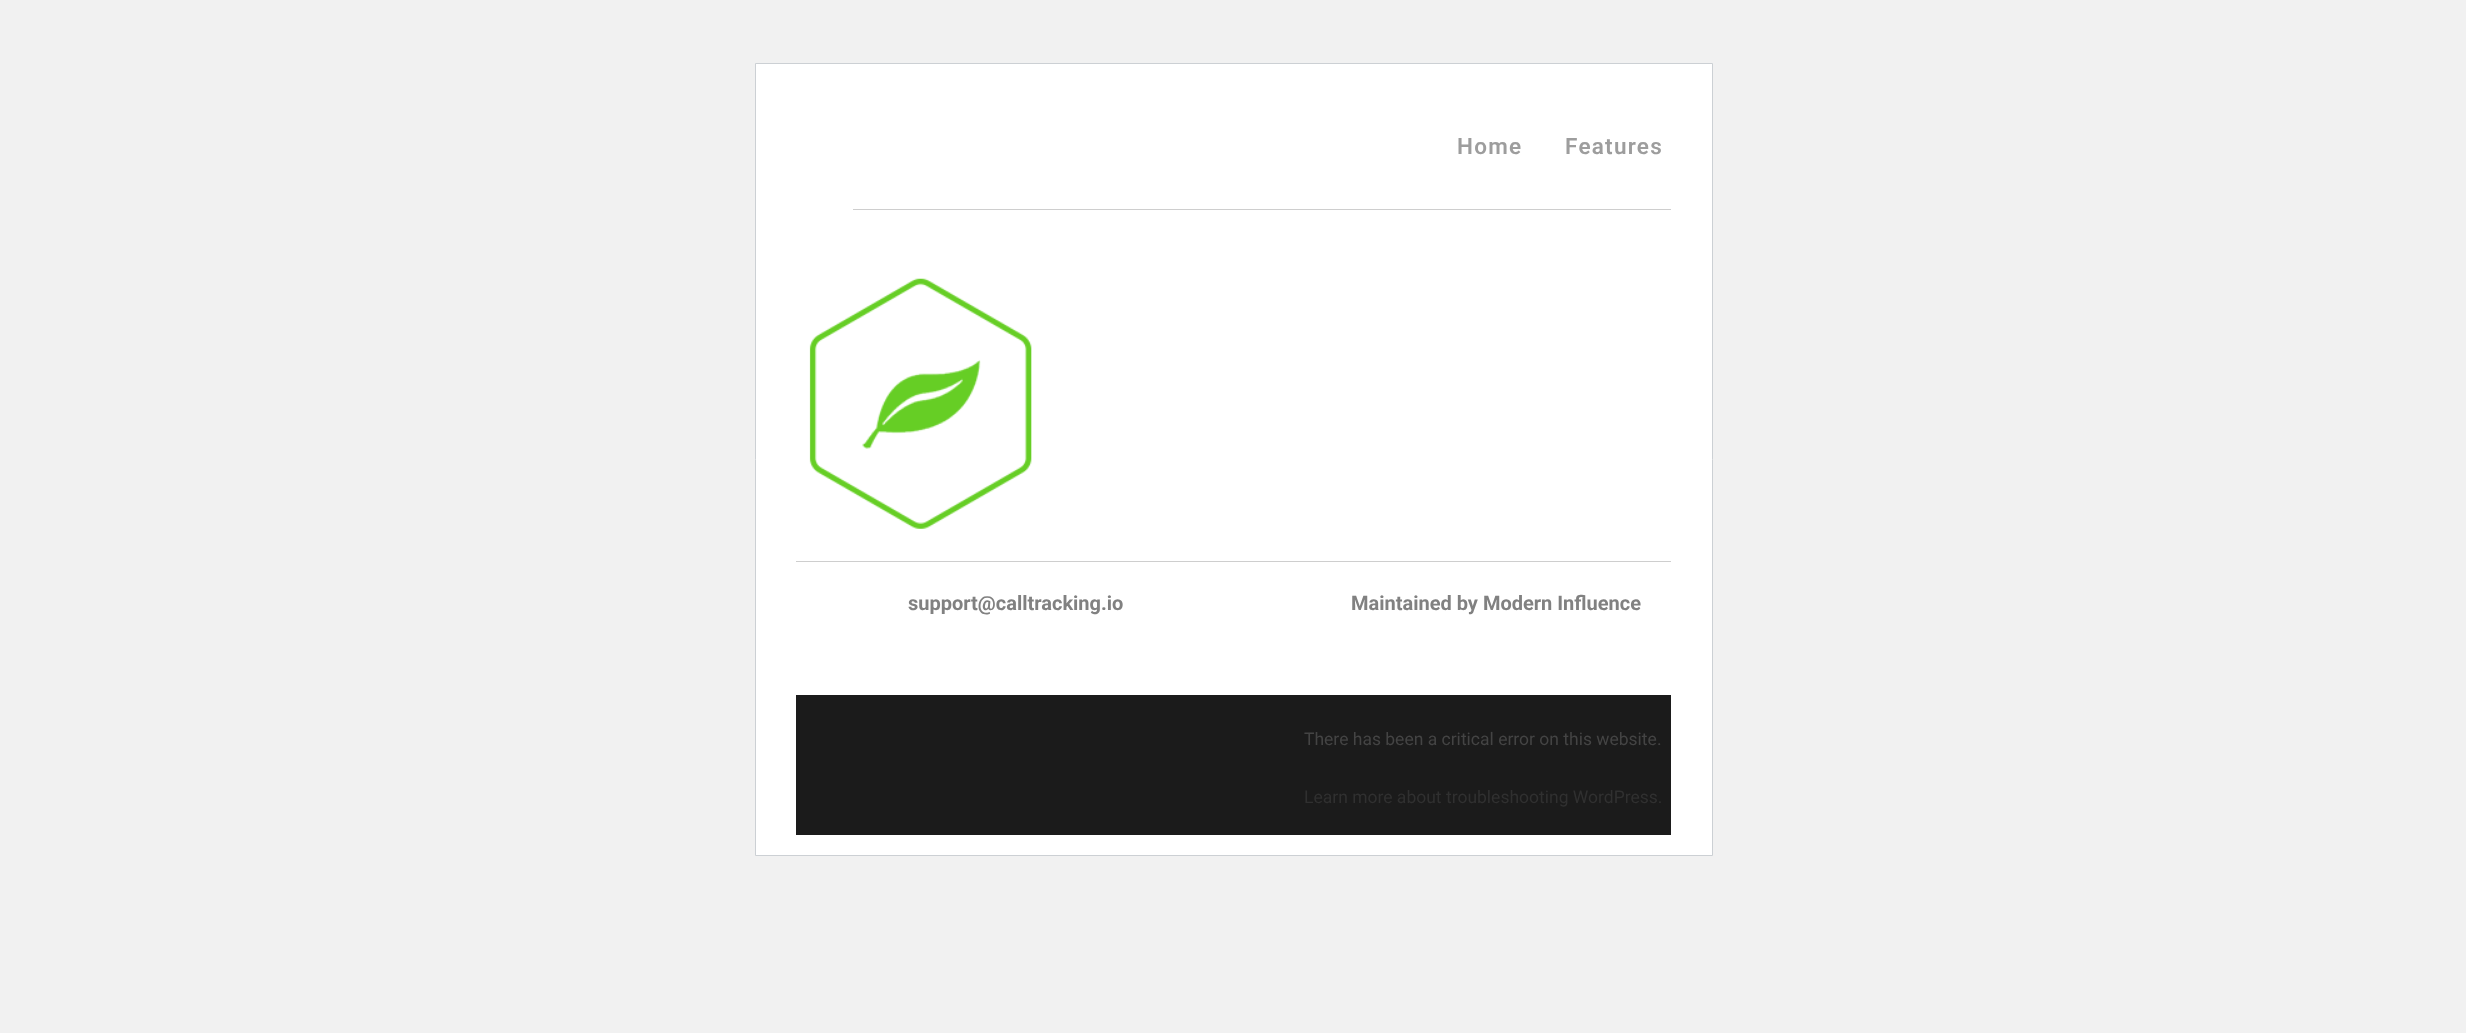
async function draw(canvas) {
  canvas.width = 2466;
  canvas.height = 1033;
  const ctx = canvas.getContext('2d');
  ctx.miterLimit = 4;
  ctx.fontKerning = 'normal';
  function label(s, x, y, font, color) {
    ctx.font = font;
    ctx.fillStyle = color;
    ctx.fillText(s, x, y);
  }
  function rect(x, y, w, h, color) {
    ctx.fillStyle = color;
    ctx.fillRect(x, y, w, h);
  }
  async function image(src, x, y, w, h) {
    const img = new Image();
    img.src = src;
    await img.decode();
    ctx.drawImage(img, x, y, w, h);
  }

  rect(0, 0, 2466, 1033, '#f1f1f1');
  ctx.fillStyle = '#fff';
  ctx.beginPath();
  ctx.rect(755.5, 63.5, 957, 792);
  ctx.fill();
  ctx.strokeStyle = '#ccd0d4';
  ctx.stroke();
  rect(853, 209, 818, 1, '#cecece');
  ctx.letterSpacing = '1.25px';
  label('Home', 1457, 154, '600 22.5px Roboto', '#9d9d9d');
  label('Features', 1565, 154, '600 22.5px Roboto', '#9d9d9d');
  await image('assets/img1.png', 809, 278, 223, 251);
  rect(796, 561, 875, 1, '#cecece');
  ctx.letterSpacing = '0px';
  label('support@calltracking.io', 908, 610, 'bold 20px Roboto', '#818181');
  label('Maintained by Modern Influence', 1351, 610, 'bold 20px Roboto', '#818181');
  rect(796, 695, 875, 140, '#1b1b1b');
  label('There has been a critical error on this website.', 1304, 745, '17.5px Roboto', '#444');
  label('Learn more about troubleshooting WordPress.', 1304, 803, '17.5px Roboto', '#303030');
}

draw(document.querySelector('canvas'));
